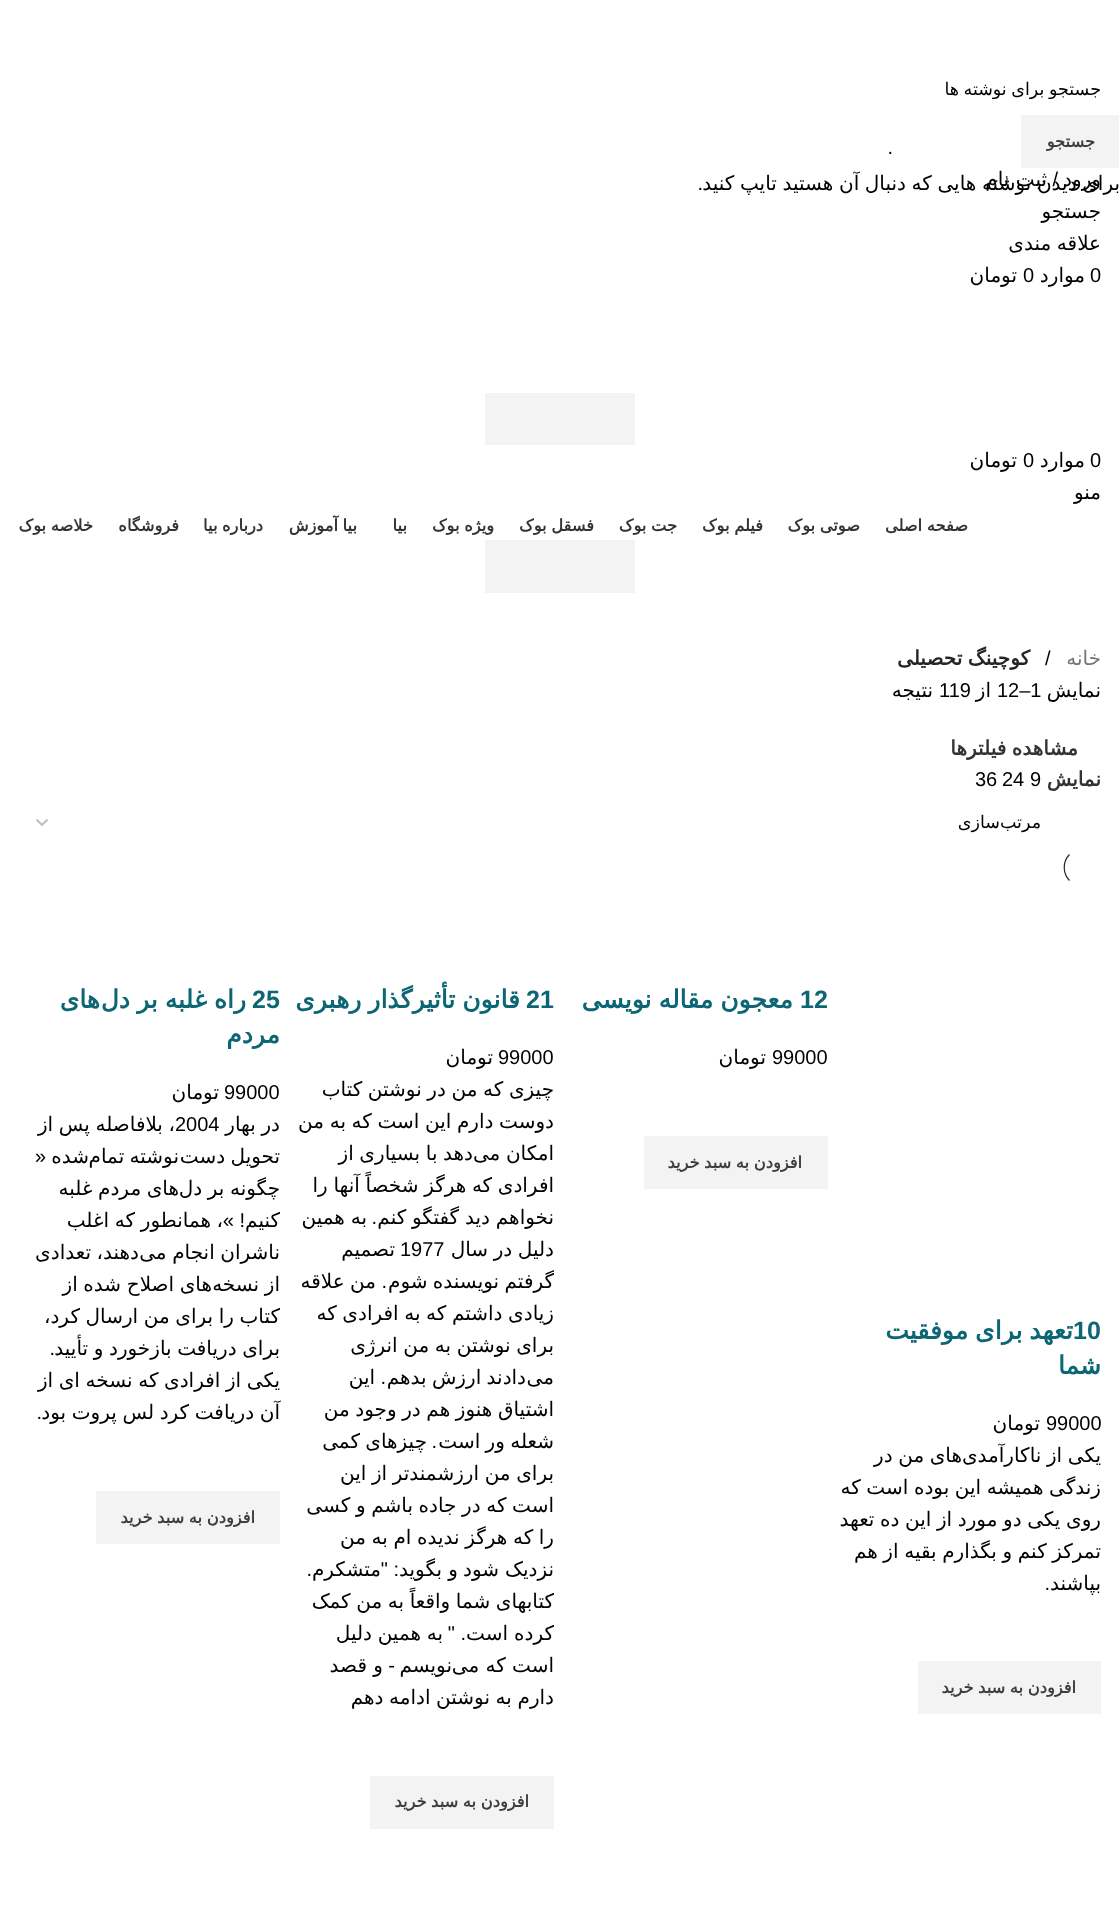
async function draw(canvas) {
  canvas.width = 1119;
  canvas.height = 1913;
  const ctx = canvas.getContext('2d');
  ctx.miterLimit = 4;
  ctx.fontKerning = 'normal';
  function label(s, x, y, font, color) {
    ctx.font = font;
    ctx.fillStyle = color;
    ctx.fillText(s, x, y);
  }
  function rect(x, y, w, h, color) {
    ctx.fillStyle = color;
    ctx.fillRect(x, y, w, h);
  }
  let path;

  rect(0, 0, 1119, 1913, '#fff');
  ctx.save();
  ctx.beginPath();
  ctx.rect(19, 79, 1082, 20);
  ctx.clip();
  ctx.wordSpacing = '-1px';
  ctx.direction = 'rtl';
  label('جستجو برای نوشته ها', 1101, 95, '17.5px DejaVu Sans', '#000');
  ctx.restore();
  rect(1021, 115, 98, 53, '#f3f3f3');
  ctx.direction = 'rtl';
  label('جستجو', 1095, 147, 'bold 16.25px DejaVu Sans', '#3e3e3e');
  label('ورود', 1101, 186, '20px DejaVu Sans', '#000');
  label('/', 1058, 186, '20px Liberation Sans', '#000');
  label('ثبت نام', 1047, 186, '20px DejaVu Sans', '#000');
  ctx.wordSpacing = '-0.75px';
  label('برای دیدن نوشته هایی که دنبال آن هستید تایپ کنید', 1120, 190, '20px DejaVu Sans', '#000');
  ctx.wordSpacing = '0px';
  label('.', 703, 190, '20px Liberation Sans', '#000');
  label('.', 893, 154, '20px Liberation Sans', '#000');
  label('جستجو', 1101, 218, '20px DejaVu Sans', '#000');
  ctx.wordSpacing = '-0.75px';
  label('علاقه مندی', 1101, 250, '20px DejaVu Sans', '#000');
  ctx.wordSpacing = '0px';
  ctx.direction = 'ltr';
  label('0', 1090, 282, '20px Liberation Sans', '#000');
  ctx.direction = 'rtl';
  label('موارد', 1085, 282, '20px DejaVu Sans', '#000');
  ctx.direction = 'ltr';
  label('0', 1023, 282, '20px Liberation Sans', '#000');
  ctx.direction = 'rtl';
  label('تومان', 1017, 282, '20px DejaVu Sans', '#000');
  rect(485, 393, 150, 52, '#f3f3f3');
  ctx.direction = 'ltr';
  label('0', 1090, 467, '20px Liberation Sans', '#000');
  ctx.direction = 'rtl';
  label('موارد', 1085, 467, '20px DejaVu Sans', '#000');
  ctx.direction = 'ltr';
  label('0', 1023, 467, '20px Liberation Sans', '#000');
  ctx.direction = 'rtl';
  label('تومان', 1017, 467, '20px DejaVu Sans', '#000');
  label('منو', 1101, 499, '20px DejaVu Sans', '#000');
  ctx.wordSpacing = '-0.5px';
  label('صفحه اصلی', 968, 531, 'bold 16.25px DejaVu Sans', '#333');
  label('صوتی بوک', 860, 531, 'bold 16.25px DejaVu Sans', '#333');
  label('فیلم بوک', 763, 531, 'bold 16.25px DejaVu Sans', '#333');
  label('جت بوک', 677, 531, 'bold 16.25px DejaVu Sans', '#333');
  label('فسقل بوک', 594, 531, 'bold 16.25px DejaVu Sans', '#333');
  label('ویژه بوک', 494, 531, 'bold 16.25px DejaVu Sans', '#333');
  ctx.wordSpacing = '0px';
  label('بیا', 407, 531, 'bold 16.25px DejaVu Sans', '#333');
  ctx.wordSpacing = '-0.5px';
  label('بیا آموزش', 357, 531, 'bold 16.25px DejaVu Sans', '#333');
  label('درباره بیا', 263, 531, 'bold 16.25px DejaVu Sans', '#333');
  ctx.wordSpacing = '0px';
  label('فروشگاه', 179, 531, 'bold 16.25px DejaVu Sans', '#333');
  ctx.wordSpacing = '-0.5px';
  label('خلاصه بوک', 93, 531, 'bold 16.25px DejaVu Sans', '#333');
  rect(485, 540, 150, 53, '#f3f3f3');
  ctx.wordSpacing = '0px';
  label('خانه', 1101, 665, '20px DejaVu Sans', '#767676');
  ctx.direction = 'ltr';
  label('/', 1045, 665, '20px Liberation Sans', '#000');
  ctx.wordSpacing = '-0.75px';
  ctx.direction = 'rtl';
  label('کوچینگ تحصیلی', 1030, 665, 'bold 20px DejaVu Sans', '#242424');
  ctx.wordSpacing = '0px';
  label('نمایش', 1101, 697, '20px DejaVu Sans', '#000');
  ctx.direction = 'ltr';
  label('12–1', 997, 697, '20px Liberation Sans', '#000');
  ctx.direction = 'rtl';
  label('از', 991, 697, '20px DejaVu Sans', '#000');
  ctx.direction = 'ltr';
  label('119', 939, 697, '20px Liberation Sans', '#000');
  ctx.direction = 'rtl';
  label('نتیجه', 933, 697, '20px DejaVu Sans', '#000');
  ctx.wordSpacing = '-0.75px';
  label('مشاهده فیلترها', 1078, 755, 'bold 20px DejaVu Sans', '#333');
  ctx.wordSpacing = '0px';
  label('نمایش', 1101, 786, 'bold 20px DejaVu Sans', '#333');
  ctx.direction = 'ltr';
  label('9', 1030, 786, '20px Liberation Sans', '#000');
  label('24', 1002, 786, '20px Liberation Sans', '#000');
  label('36', 975, 786, '20px Liberation Sans', '#000');
  path = new Path2D('M36.5 819.5L42 825L47.5 819.5');
  ctx.strokeStyle = '#bbb';
  ctx.lineWidth = 1.8;
  ctx.stroke(path);
  ctx.direction = 'rtl';
  label('مرتب‌سازی', 1041, 828, '17.5px DejaVu Sans', '#000');
  path = new Path2D('M1069.5 880.5C1062.5 873.5 1062.5 861.5 1069.5 854.5');
  ctx.strokeStyle = '#242424';
  ctx.lineWidth = 1.2;
  ctx.stroke(path);
  ctx.direction = 'ltr';
  label('12', 800, 1008, 'bold 25px Liberation Sans', '#0c6674');
  ctx.wordSpacing = '-1px';
  ctx.direction = 'rtl';
  label('معجون مقاله نویسی', 793, 1008, 'bold 25px DejaVu Sans', '#0c6674');
  ctx.wordSpacing = '0px';
  ctx.direction = 'ltr';
  label('99000', 772, 1064, '20px Liberation Sans', '#000');
  ctx.direction = 'rtl';
  label('تومان', 766, 1064, '20px DejaVu Sans', '#000');
  rect(644, 1136, 184, 53, '#f3f3f3');
  ctx.wordSpacing = '-0.5px';
  label('افزودن به سبد خرید', 802, 1168, 'bold 16.25px DejaVu Sans', '#3e3e3e');
  ctx.wordSpacing = '0px';
  ctx.direction = 'ltr';
  label('21', 526, 1008, 'bold 25px Liberation Sans', '#0c6674');
  ctx.wordSpacing = '-1px';
  ctx.direction = 'rtl';
  label('قانون تأثیرگذار رهبری', 520, 1008, 'bold 25px DejaVu Sans', '#0c6674');
  ctx.wordSpacing = '0px';
  ctx.direction = 'ltr';
  label('99000', 498, 1064, '20px Liberation Sans', '#000');
  ctx.direction = 'rtl';
  label('تومان', 493, 1064, '20px DejaVu Sans', '#000');
  ctx.wordSpacing = '-0.75px';
  label('چیزی که من در نوشتن کتاب', 554, 1096, '20px DejaVu Sans', '#000');
  label('دوست دارم این است که به من', 554, 1128, '20px DejaVu Sans', '#000');
  label('امکان می', 554, 1160, '20px DejaVu Sans', '#000');
  label('دهد با بسیاری از', 473, 1160, '20px DejaVu Sans', '#000');
  label('افرادی که هرگز شخصاً آنها را', 554, 1192, '20px DejaVu Sans', '#000');
  ctx.wordSpacing = '-0.5px';
  label('نخواهم دید گفتگو کنم', 554, 1224, '20px DejaVu Sans', '#000');
  ctx.wordSpacing = '0px';
  label('.', 377, 1224, '20px Liberation Sans', '#000');
  ctx.wordSpacing = '-0.5px';
  label('به همین', 367, 1224, '20px DejaVu Sans', '#000');
  ctx.wordSpacing = '-0.75px';
  label('دلیل در سال', 554, 1256, '20px DejaVu Sans', '#000');
  ctx.wordSpacing = '0px';
  ctx.direction = 'ltr';
  label('1977', 400, 1256, '20px Liberation Sans', '#000');
  ctx.direction = 'rtl';
  label('تصمیم', 395, 1256, '20px DejaVu Sans', '#000');
  ctx.wordSpacing = '-1px';
  label('گرفتم نویسنده شوم', 554, 1288, '20px DejaVu Sans', '#000');
  ctx.wordSpacing = '0px';
  label('.', 387, 1288, '20px Liberation Sans', '#000');
  ctx.wordSpacing = '-1px';
  label('من علاقه', 376, 1288, '20px DejaVu Sans', '#000');
  ctx.wordSpacing = '-0.75px';
  label('زیادی داشتم که به افرادی که', 554, 1320, '20px DejaVu Sans', '#000');
  label('برای نوشتن به من انرژی', 554, 1352, '20px DejaVu Sans', '#000');
  ctx.wordSpacing = '0px';
  label('می', 554, 1384, '20px DejaVu Sans', '#000');
  ctx.wordSpacing = '-1px';
  label('دادند ارزش بدهم', 526, 1384, '20px DejaVu Sans', '#000');
  ctx.wordSpacing = '0px';
  label('.', 386, 1384, '20px Liberation Sans', '#000');
  label('این', 375, 1384, '20px DejaVu Sans', '#000');
  ctx.wordSpacing = '-0.75px';
  label('اشتیاق هنوز هم در وجود من', 554, 1416, '20px DejaVu Sans', '#000');
  ctx.wordSpacing = '-1px';
  label('شعله ور است', 554, 1448, '20px DejaVu Sans', '#000');
  ctx.wordSpacing = '0px';
  label('.', 437, 1448, '20px Liberation Sans', '#000');
  ctx.wordSpacing = '-1px';
  label('چیزهای کمی', 427, 1448, '20px DejaVu Sans', '#000');
  ctx.wordSpacing = '-0.75px';
  label('برای من ارزشمندتر از این', 554, 1480, '20px DejaVu Sans', '#000');
  label('است که در جاده باشم و کسی', 554, 1512, '20px DejaVu Sans', '#000');
  label('را که هرگز ندیده ام به من', 554, 1544, '20px DejaVu Sans', '#000');
  ctx.wordSpacing = '0px';
  label('نزدیک', 554, 1576, '20px DejaVu Sans', '#000');
  label('شود', 499, 1576, '20px DejaVu Sans', '#000');
  label('و', 458, 1576, '20px DejaVu Sans', '#000');
  label('بگوید', 442, 1576, '20px DejaVu Sans', '#000');
  label(': "', 399, 1576, '20px Liberation Sans', '#000');
  label('متشکرم', 381, 1576, '20px DejaVu Sans', '#000');
  label('.', 312, 1576, '20px Liberation Sans', '#000');
  ctx.wordSpacing = '-0.75px';
  label('کتابهای شما واقعاً به من کمک', 554, 1608, '20px DejaVu Sans', '#000');
  ctx.wordSpacing = '0px';
  label('کرده', 554, 1640, '20px DejaVu Sans', '#000');
  label('است', 508, 1640, '20px DejaVu Sans', '#000');
  label('. "', 466, 1640, '20px Liberation Sans', '#000');
  label('به', 443, 1640, '20px DejaVu Sans', '#000');
  label('همین', 421, 1640, '20px DejaVu Sans', '#000');
  label('دلیل', 372, 1640, '20px DejaVu Sans', '#000');
  label('است که می', 554, 1672, '20px DejaVu Sans', '#000');
  label('نویسم', 452, 1672, '20px DejaVu Sans', '#000');
  label('-', 395, 1672, '20px Liberation Sans', '#000');
  label('و قصد', 383, 1672, '20px DejaVu Sans', '#000');
  ctx.wordSpacing = '-0.75px';
  label('دارم به نوشتن ادامه دهم', 554, 1704, '20px DejaVu Sans', '#000');
  rect(370, 1776, 184, 53, '#f3f3f3');
  ctx.wordSpacing = '-0.5px';
  label('افزودن به سبد خرید', 529, 1807, 'bold 16.25px DejaVu Sans', '#3e3e3e');
  ctx.wordSpacing = '0px';
  ctx.direction = 'ltr';
  label('25', 252, 1008, 'bold 25px Liberation Sans', '#0c6674');
  ctx.wordSpacing = '-1px';
  ctx.direction = 'rtl';
  label('راه غلبه بر دل', 246, 1008, 'bold 25px DejaVu Sans', '#0c6674');
  ctx.wordSpacing = '0px';
  label('های', 100, 1008, 'bold 25px DejaVu Sans', '#0c6674');
  label('مردم', 280, 1043, 'bold 25px DejaVu Sans', '#0c6674');
  ctx.direction = 'ltr';
  label('99000', 224, 1099, '20px Liberation Sans', '#000');
  ctx.direction = 'rtl';
  label('تومان', 219, 1099, '20px DejaVu Sans', '#000');
  ctx.wordSpacing = '-0.75px';
  label('در بهار', 280, 1131, '20px DejaVu Sans', '#000');
  ctx.wordSpacing = '0px';
  ctx.direction = 'ltr';
  label('2004', 175, 1131, '20px Liberation Sans', '#000');
  ctx.wordSpacing = '-0.75px';
  ctx.direction = 'rtl';
  label('، بلافاصله پس از', 175, 1131, '20px DejaVu Sans', '#000');
  ctx.wordSpacing = '-1px';
  label('تحویل دست', 280, 1163, '20px DejaVu Sans', '#000');
  label('نوشته تمام', 179, 1163, '20px DejaVu Sans', '#000');
  ctx.wordSpacing = '0px';
  label('شده', 89, 1163, '20px DejaVu Sans', '#000');
  label('«', 46, 1163, '20px Liberation Sans', '#000');
  ctx.wordSpacing = '-0.75px';
  label('چگونه بر دل', 280, 1195, '20px DejaVu Sans', '#000');
  label('های مردم غلبه', 179, 1195, '20px DejaVu Sans', '#000');
  ctx.wordSpacing = '0px';
  label('کنیم', 280, 1227, '20px DejaVu Sans', '#000');
  label('! »', 245, 1227, '20px Liberation Sans', '#000');
  label('،', 223, 1227, '20px DejaVu Sans', '#000');
  label('همانطور', 211, 1227, '20px DejaVu Sans', '#000');
  label('که', 135, 1227, '20px DejaVu Sans', '#000');
  label('اغلب', 109, 1227, '20px DejaVu Sans', '#000');
  ctx.wordSpacing = '-0.75px';
  label('ناشران انجام می', 280, 1259, '20px DejaVu Sans', '#000');
  label('دهند، تعدادی', 139, 1259, '20px DejaVu Sans', '#000');
  label('از نسخه', 280, 1291, '20px DejaVu Sans', '#000');
  label('های اصلاح شده از', 212, 1291, '20px DejaVu Sans', '#000');
  label('کتاب را برای من ارسال کرد،', 280, 1323, '20px DejaVu Sans', '#000');
  label('برای دریافت بازخورد و تأیید', 280, 1355, '20px DejaVu Sans', '#000');
  ctx.wordSpacing = '0px';
  label('.', 55, 1355, '20px Liberation Sans', '#000');
  ctx.wordSpacing = '-0.75px';
  label('یکی از افرادی که نسخه ای از', 280, 1387, '20px DejaVu Sans', '#000');
  label('آن دریافت کرد لس پروت بود', 280, 1419, '20px DejaVu Sans', '#000');
  ctx.wordSpacing = '0px';
  label('.', 42, 1419, '20px Liberation Sans', '#000');
  rect(96, 1491, 184, 53, '#f3f3f3');
  ctx.wordSpacing = '-0.5px';
  label('افزودن به سبد خرید', 255, 1523, 'bold 16.25px DejaVu Sans', '#3e3e3e');
  ctx.wordSpacing = '0px';
  ctx.direction = 'ltr';
  label('10', 1073, 1339, 'bold 25px Liberation Sans', '#0c6674');
  ctx.wordSpacing = '-1px';
  ctx.direction = 'rtl';
  label('تعهد برای موفقیت', 1073, 1339, 'bold 25px DejaVu Sans', '#0c6674');
  ctx.wordSpacing = '0px';
  label('شما', 1101, 1374, 'bold 25px DejaVu Sans', '#0c6674');
  ctx.direction = 'ltr';
  label('99000', 1046, 1430, '20px Liberation Sans', '#000');
  ctx.direction = 'rtl';
  label('تومان', 1040, 1430, '20px DejaVu Sans', '#000');
  ctx.wordSpacing = '-0.75px';
  label('یکی از ناکارآمدی', 1101, 1462, '20px DejaVu Sans', '#000');
  label('های من در', 962, 1462, '20px DejaVu Sans', '#000');
  label('زندگی همیشه این بوده است که', 1101, 1494, '20px DejaVu Sans', '#000');
  label('روی یکی دو مورد از این ده تعهد', 1101, 1526, '20px DejaVu Sans', '#000');
  label('تمرکز کنم و بگذارم بقیه از هم', 1101, 1558, '20px DejaVu Sans', '#000');
  ctx.wordSpacing = '0px';
  label('بپاشند', 1101, 1590, '20px DejaVu Sans', '#000');
  label('.', 1050, 1590, '20px Liberation Sans', '#000');
  rect(918, 1661, 183, 53, '#f3f3f3');
  ctx.wordSpacing = '-0.5px';
  label('افزودن به سبد خرید', 1076, 1693, 'bold 16.25px DejaVu Sans', '#3e3e3e');
}

draw(document.querySelector('canvas'));
